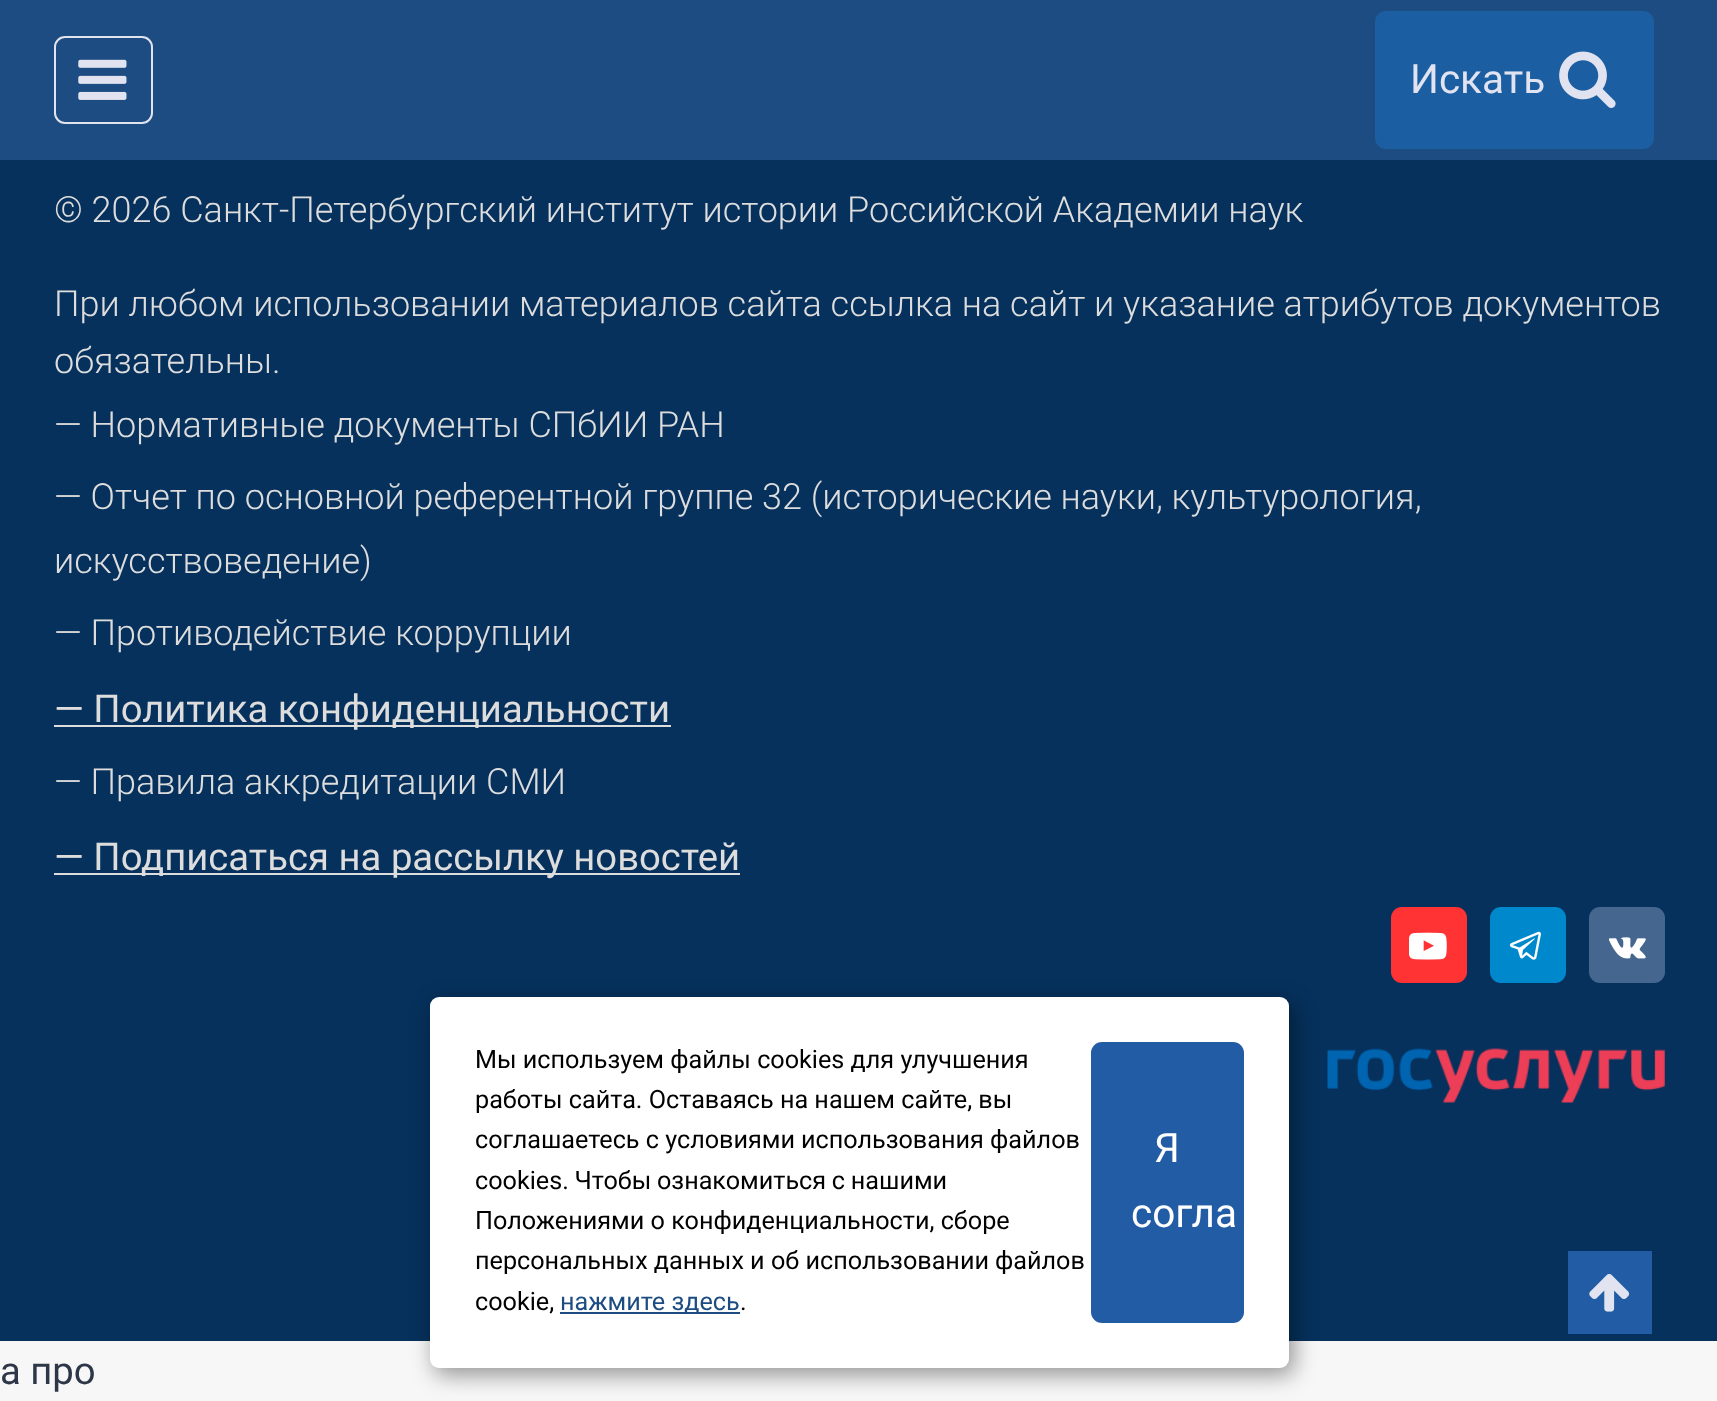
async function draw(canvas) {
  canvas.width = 1717;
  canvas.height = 1401;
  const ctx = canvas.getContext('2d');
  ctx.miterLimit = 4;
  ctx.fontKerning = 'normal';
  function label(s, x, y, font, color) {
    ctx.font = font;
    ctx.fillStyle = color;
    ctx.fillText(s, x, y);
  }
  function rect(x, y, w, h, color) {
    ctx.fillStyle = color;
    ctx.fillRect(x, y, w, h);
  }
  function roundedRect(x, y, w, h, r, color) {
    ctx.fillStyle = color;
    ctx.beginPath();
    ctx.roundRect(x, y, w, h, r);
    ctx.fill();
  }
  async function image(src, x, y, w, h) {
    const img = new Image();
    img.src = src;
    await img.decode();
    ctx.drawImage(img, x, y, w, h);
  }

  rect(0, 0, 1717, 1401, '#f7f7f7');
  rect(0, 0, 1717, 160, '#1d4c82');
  ctx.beginPath();
  ctx.roundRect(55, 37, 97, 86, 10);
  ctx.strokeStyle = '#e1e4f0';
  ctx.lineWidth = 2;
  ctx.stroke();
  await image('assets/img1.png', 78, 59, 49, 41);
  roundedRect(1375, 11, 279, 138, 11, '#1c5ea2');
  label('Искать', 1410, 93, '40.5px Roboto', '#e1e4f0');
  await image('assets/img2.png', 1559, 51, 57, 57);
  rect(0, 160, 1717, 1181, '#06315c');
  label('© 2026 Санкт-Петербургский институт истории Российской Академии наук', 54, 222, '300 36px Roboto', '#ddd');
  label('При любом использовании материалов сайта ссылка на сайт и указание атрибутов документов', 54, 316, '300 36px Roboto', '#ddd');
  label('обязательны.', 54, 373, '300 36px Roboto', '#ddd');
  label('— Нормативные документы СПбИИ РАН', 54, 437, '300 36px Roboto', '#ddd');
  label('— Отчет по основной референтной группе 32 (исторические науки, культурология,', 54, 509, '300 36px Roboto', '#ddd');
  label('искусствоведение)', 54, 573, '300 36px Roboto', '#ddd');
  label('— Противодействие коррупции', 54, 645, '300 36px Roboto', '#ddd');
  rect(54, 725, 617, 2, '#ddd');
  label('— Политика конфиденциальности', 54, 722, '38.25px Roboto', '#ddd');
  label('— Правила аккредитации СМИ', 54, 794, '300 36px Roboto', '#ddd');
  rect(54, 873, 686, 2, '#ddd');
  label('— Подписаться на рассылку новостей', 54, 870, '38.25px Roboto', '#ddd');
  roundedRect(1391, 907, 76, 76, 11, '#f33');
  await image('assets/img3.png', 1409, 932, 38, 28);
  roundedRect(1490, 907, 76, 76, 11, '#08c');
  await image('assets/img4.png', 1509, 931, 32, 29);
  roundedRect(1589, 907, 76, 76, 11, '#45668e');
  await image('assets/img5.png', 1609, 937, 37, 22);
  await image('assets/img6.png', 1327, 1048, 338, 55);
  ctx.fillStyle = '#00000066';
  ctx.filter = 'blur(11px)';
  ctx.beginPath();
  ctx.roundRect(434, 1004, 860, 371, 9);
  ctx.fill();
  ctx.filter = 'none';
  roundedRect(430, 997, 859, 371, 9, '#fff');
  label('Мы используем файлы cookies для улучшения', 475, 1068, '25.2px Roboto', '#000');
  label('работы сайта. Оставаясь на нашем сайте, вы', 475, 1108, '25.2px Roboto', '#000');
  label('соглашаетесь с условиями', 475, 1148, '25.2px Roboto', '#000');
  label('использования файлов', 801, 1148, '25.2px Roboto', '#000');
  ctx.wordSpacing = '-0.5px';
  label('cookies. Чтобы ознакомиться с нашими', 475, 1189, '25.2px Roboto', '#000');
  ctx.wordSpacing = '0px';
  label('Положениями о конфиденциальности, сборе', 475, 1229, '25.2px Roboto', '#000');
  label('персональных данных и об использовании', 475, 1269, '25.2px Roboto', '#000');
  label('файлов', 995, 1269, '25.2px Roboto', '#000');
  label('cookie,', 475, 1310, '25.2px Roboto', '#000');
  rect(560, 1312, 180, 2, '#1d4c82');
  label('нажмите здесь', 560, 1310, '25.2px Roboto', '#1d4c82');
  label('.', 740, 1310, '25.2px Roboto', '#000');
  roundedRect(1091, 1042, 153, 281, 11, '#215ca5');
  label('Я', 1154, 1162, '40.5px Roboto', '#fff');
  label('согла', 1131, 1227, '40.5px Roboto', '#fff');
  rect(1568, 1251, 84, 83, '#215ca5');
  await image('assets/img7.png', 1589, 1273, 41, 39);
  label('а про', 0, 1384, '38.25px Roboto', '#2d3748');
}

draw(document.querySelector('canvas'));
